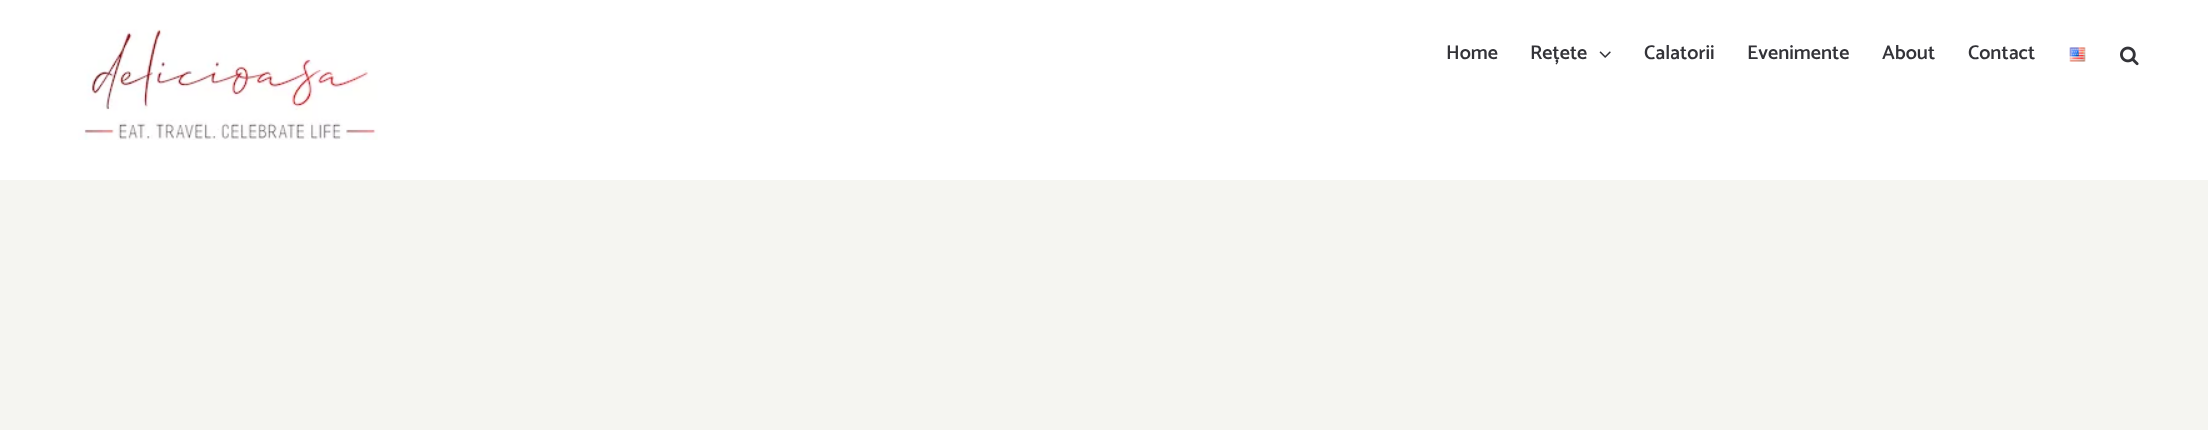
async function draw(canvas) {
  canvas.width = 2208;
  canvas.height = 430;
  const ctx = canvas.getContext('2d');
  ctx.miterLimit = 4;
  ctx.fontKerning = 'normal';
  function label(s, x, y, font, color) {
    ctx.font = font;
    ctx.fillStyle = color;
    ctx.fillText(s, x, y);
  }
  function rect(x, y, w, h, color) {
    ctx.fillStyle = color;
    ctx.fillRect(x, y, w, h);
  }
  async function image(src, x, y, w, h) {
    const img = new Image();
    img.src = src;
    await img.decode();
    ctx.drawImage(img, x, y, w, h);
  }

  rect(0, 0, 2208, 430, '#f5f5f1');
  rect(0, 0, 2208, 180, '#fff');
  await image('assets/img1.png', 78, 29, 300, 111);
  label('Home', 1446, 59, '600 20px Catamaran', '#333338');
  label('Rețete', 1530, 59, '600 20px Catamaran', '#333338');
  await image('assets/img2.png', 1599, 51, 12, 7);
  label('Calatorii', 1644, 59, '600 20px Catamaran', '#333338');
  label('Evenimente', 1747, 59, '600 20px Catamaran', '#333338');
  label('About', 1882, 59, '600 20px Catamaran', '#333338');
  label('Contact', 1968, 59, '600 20px Catamaran', '#333338');
  await image('assets/img3.png', 2069, 47, 17, 15);
  await image('assets/img4.png', 2120, 46, 19, 20);
}

draw(document.querySelector('canvas'));
